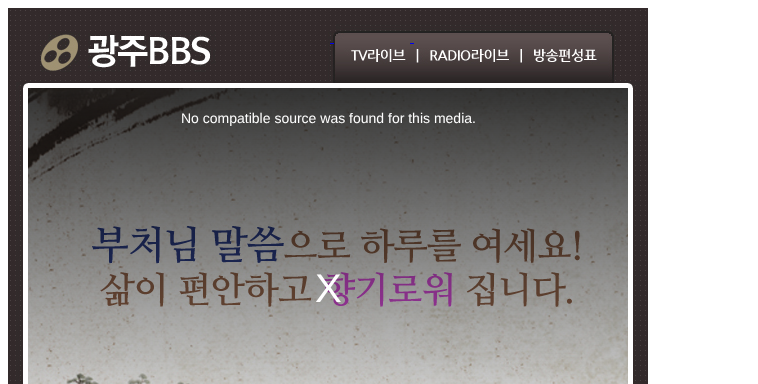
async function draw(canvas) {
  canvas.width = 758;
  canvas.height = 384;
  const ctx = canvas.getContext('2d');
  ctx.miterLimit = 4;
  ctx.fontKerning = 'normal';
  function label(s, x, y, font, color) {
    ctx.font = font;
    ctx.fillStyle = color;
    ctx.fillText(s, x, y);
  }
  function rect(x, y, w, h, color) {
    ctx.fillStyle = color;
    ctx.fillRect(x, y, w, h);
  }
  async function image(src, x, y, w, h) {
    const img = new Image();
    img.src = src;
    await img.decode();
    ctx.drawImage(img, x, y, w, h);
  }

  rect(0, 0, 758, 384, '#fff');
  await image('assets/img1.png', 8, 8, 640, 376);
  rect(330, 43, 4, 1, '#00e');
  rect(410, 43, 4, 1, '#00e');
  await image('assets/img2.png', 28, 88, 600, 296);
  label('No compatible source was found for this media.', 181, 123, '14px Liberation Sans', '#fff');
  label('X', 315, 302, '40px Liberation Sans', '#fff');
}

draw(document.querySelector('canvas'));
